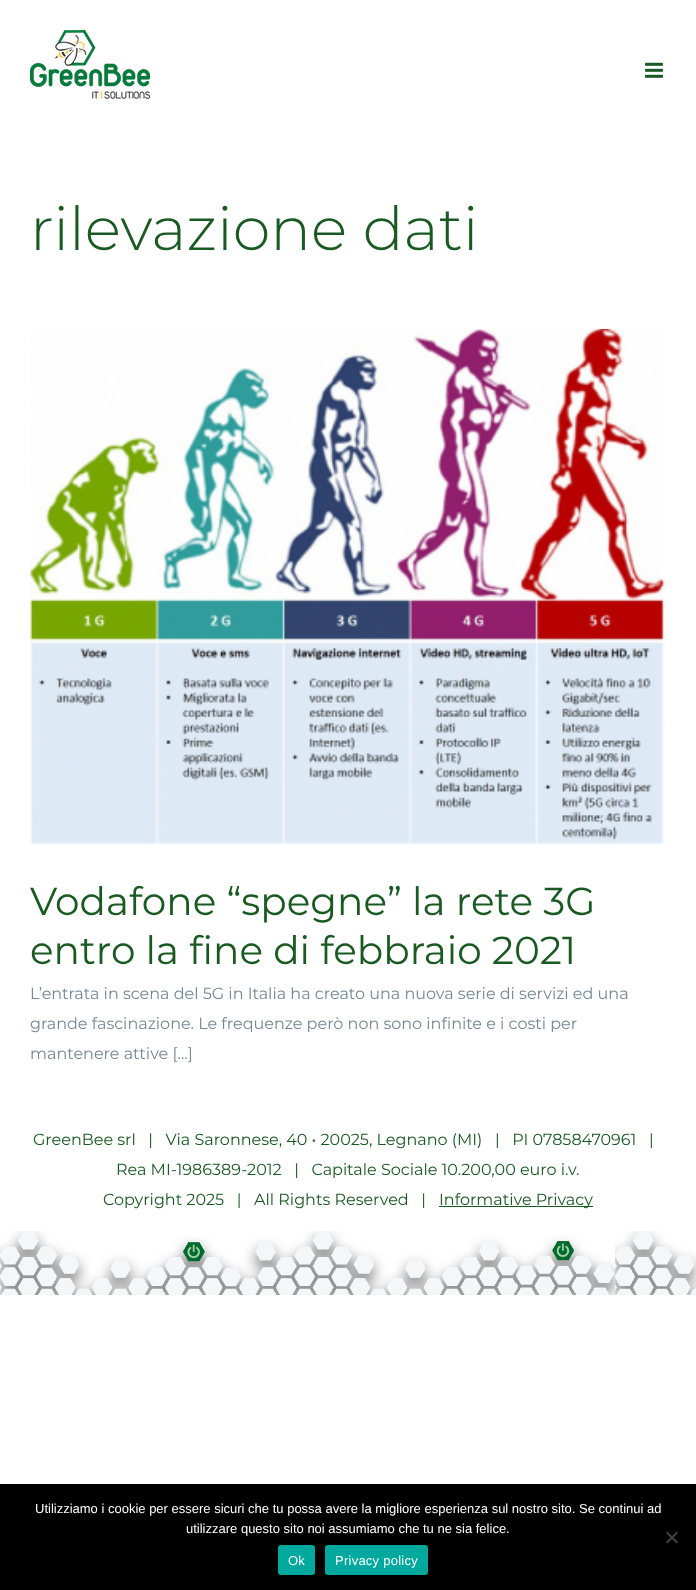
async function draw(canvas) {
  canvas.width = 696;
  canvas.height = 1590;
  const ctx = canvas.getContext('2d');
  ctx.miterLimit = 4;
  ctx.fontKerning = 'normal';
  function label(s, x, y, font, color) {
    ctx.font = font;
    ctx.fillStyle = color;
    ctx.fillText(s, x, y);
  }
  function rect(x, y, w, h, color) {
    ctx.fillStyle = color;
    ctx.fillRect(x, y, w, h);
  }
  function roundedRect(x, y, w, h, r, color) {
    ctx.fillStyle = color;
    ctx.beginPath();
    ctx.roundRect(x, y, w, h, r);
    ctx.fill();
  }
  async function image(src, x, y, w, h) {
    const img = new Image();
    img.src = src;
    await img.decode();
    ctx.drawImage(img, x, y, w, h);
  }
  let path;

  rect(0, 0, 696, 1590, '#fff');
  await image('assets/img1.png', 30, 30, 120, 69);
  await image('assets/img2.png', 645, 62, 18, 16);
  label('rilevazione dati', 30, 250, '100 60.5px Montserrat', '#185a21');
  await image('assets/img3.png', 30, 329, 636, 516);
  label('Vodafone “spegne” la rete 3G', 30, 915, '100 39px "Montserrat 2"', '#185a21');
  label('entro la fine di febbraio 2021', 30, 964, '100 39px "Montserrat 2"', '#185a21');
  label('L’entrata in scena del 5G in Italia ha creato una nuova serie di servizi ed una', 30, 999, '100 16px "Montserrat 2"', '#768894');
  label('grande fascinazione. Le frequenze però non sono infinite e i costi per', 30, 1029, '100 16px "Montserrat 2"', '#768894');
  label('mantenere attive [...]', 30, 1059, '100 16px "Montserrat 2"', '#768894');
  label('GreenBee srl   |   Via Saronnese, 40 • 20025, Legnano (MI)   |   PI 07858470961   |', 33, 1145, '100 16px "Montserrat 2"', '#185a21');
  label('Rea MI-1986389-2012   |   Capitale Sociale 10.200,00 euro i.v.', 116, 1175, '100 16px "Montserrat 2"', '#185a21');
  label('Copyright 2025   |   All Rights Reserved   |', 103, 1205, '100 16px "Montserrat 2"', '#185a21');
  rect(439, 1206, 154, 1, '#185a21');
  label('Informative Privacy', 439, 1205, '100 16px "Montserrat 2"', '#185a21');
  await image('assets/img4.png', 0, 1231, 696, 64);
  rect(0, 1484, 696, 106, '#000');
  label('Utilizziamo i cookie per essere sicuri che tu possa avere la migliore esperienza sul nostro sito. Se continui ad', 35, 1513, '13px Liberation Sans', '#fff');
  label('utilizzare questo sito noi assumiamo che tu ne sia felice.', 186, 1533, '13px Liberation Sans', '#fff');
  ctx.fillStyle = '#404040';
  path = new Path2D('M676.5 1531.5L678 1533L667.5 1543.5L666 1542Z');
  ctx.fill(path);
  path = new Path2D('M666 1533L667.5 1531.5L678 1542L676.5 1543.5Z');
  ctx.fill(path);
  roundedRect(278, 1545, 37, 30, 3, '#00a99d');
  ctx.letterSpacing = '0.25px';
  label('Ok', 288, 1565, '13px Liberation Sans', '#fff');
  roundedRect(325, 1545, 103, 30, 3, '#00a99d');
  label('Privacy policy', 335, 1565, '13px Liberation Sans', '#fff');
}

draw(document.querySelector('canvas'));
